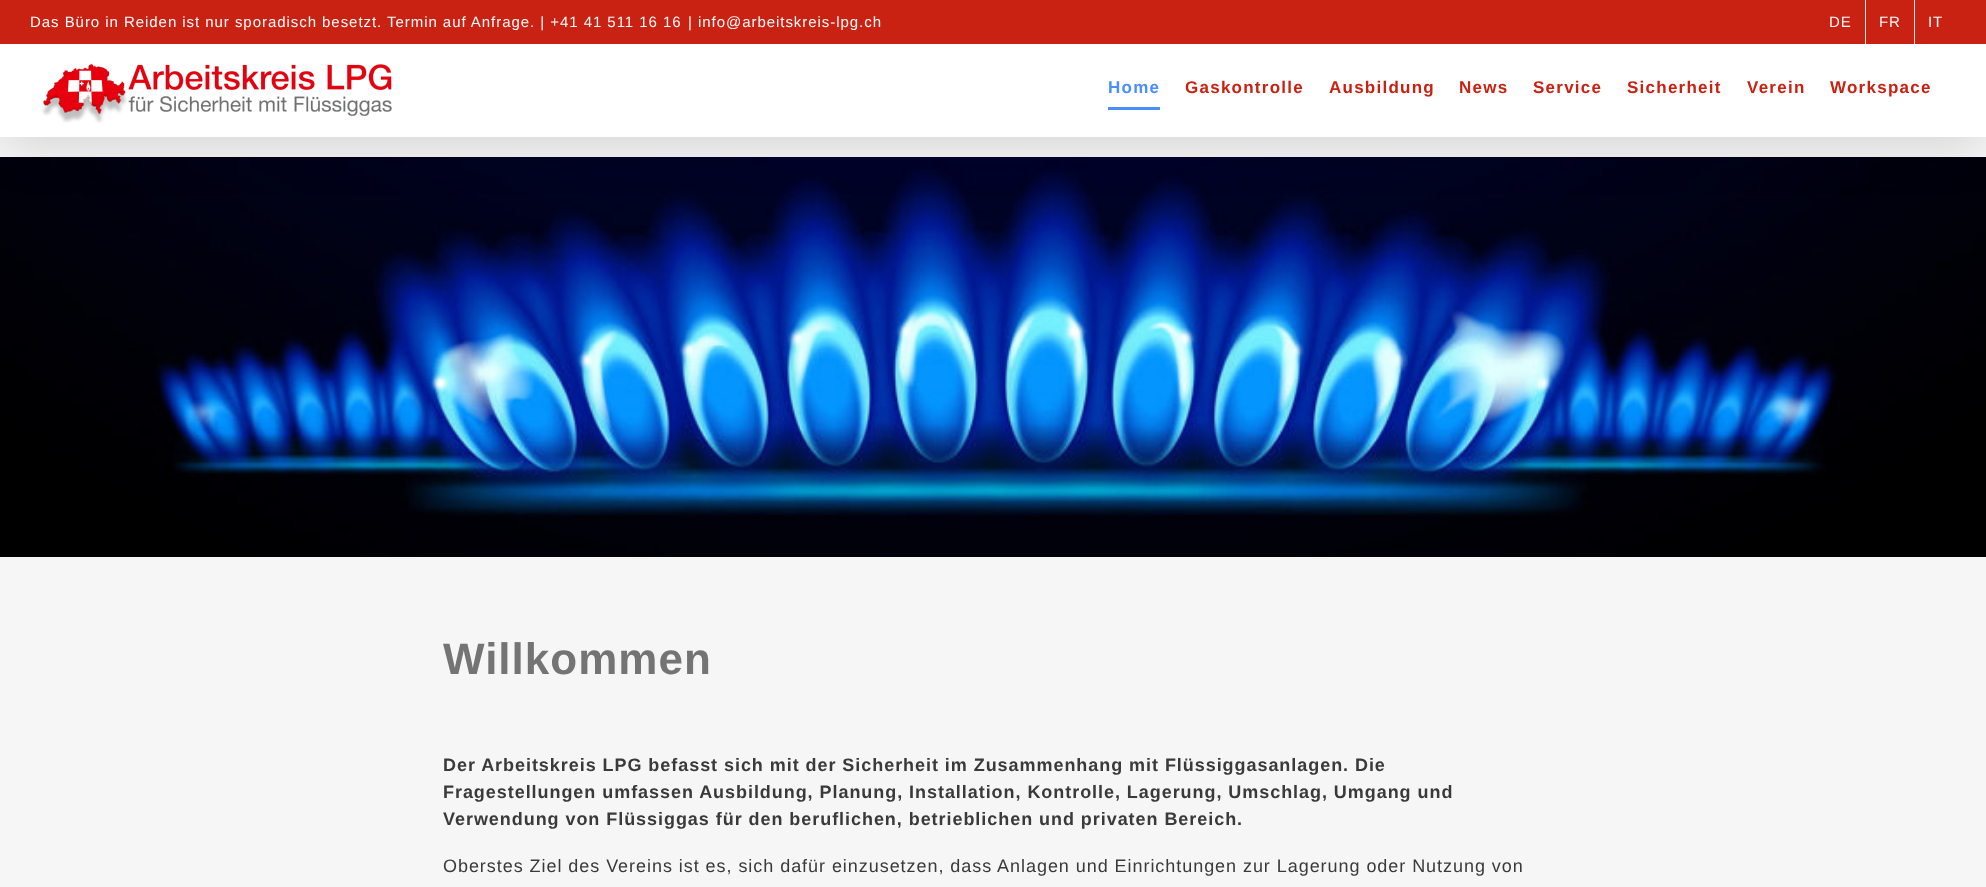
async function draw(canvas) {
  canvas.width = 1986;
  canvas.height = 887;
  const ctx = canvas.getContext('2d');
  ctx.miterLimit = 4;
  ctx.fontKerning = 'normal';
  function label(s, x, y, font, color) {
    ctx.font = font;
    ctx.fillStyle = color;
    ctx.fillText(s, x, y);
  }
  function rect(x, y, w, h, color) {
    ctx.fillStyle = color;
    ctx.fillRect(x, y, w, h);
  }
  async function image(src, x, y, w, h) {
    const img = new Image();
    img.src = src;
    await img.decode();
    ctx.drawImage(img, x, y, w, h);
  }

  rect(0, 0, 1986, 887, '#f6f6f6');
  await image('assets/img2.png', 0, 157, 1986, 400);
  ctx.fillStyle = '#00000024';
  ctx.filter = 'blur(25px)';
  ctx.beginPath();
  ctx.rect(2, 12, 1982, 133);
  ctx.fill();
  ctx.filter = 'none';
  rect(0, 0, 1986, 44, '#c92212');
  rect(0, 44, 1986, 93, '#fff');
  ctx.letterSpacing = '0.95px';
  label('Das Büro in Reiden ist nur sporadisch besetzt. Termin auf Anfrage. | +41 41 511 16 16', 30, 27, '15px Liberation Sans', '#fcfcfc');
  label('|', 688, 27, '15px Liberation Sans', '#fcfcfc');
  label('info@arbeitskreis-lpg.ch', 698, 27, '15px Liberation Sans', '#fcfcfc');
  label('DE', 1829, 27, '15px Liberation Sans', '#fcfcfc');
  rect(1865, 0, 1, 44, '#e5e5e5');
  label('FR', 1879, 27, '15px Liberation Sans', '#fcfcfc');
  rect(1914, 0, 1, 44, '#e5e5e5');
  label('IT', 1928, 27, '15px Liberation Sans', '#fcfcfc');
  await image('assets/img1.png', 42, 63, 350, 60);
  ctx.letterSpacing = '1.25px';
  label('Home', 1108, 93, 'bold 17px Liberation Sans', '#4a8eff');
  rect(1108, 107, 52, 3, '#4a8eff');
  label('Gaskontrolle', 1185, 93, 'bold 17px Liberation Sans', '#c92212');
  label('Ausbildung', 1329, 93, 'bold 17px Liberation Sans', '#c92212');
  label('News', 1459, 93, 'bold 17px Liberation Sans', '#c92212');
  label('Service', 1533, 93, 'bold 17px Liberation Sans', '#c92212');
  label('Sicherheit', 1627, 93, 'bold 17px Liberation Sans', '#c92212');
  label('Verein', 1747, 93, 'bold 17px Liberation Sans', '#c92212');
  label('Workspace', 1830, 93, 'bold 17px Liberation Sans', '#c92212');
  ctx.letterSpacing = '1px';
  label('Willkommen', 443, 674, 'bold 44px Liberation Sans', '#747474');
  ctx.letterSpacing = '0.95px';
  label('Der Arbeitskreis LPG befasst sich mit der Sicherheit im Zusammenhang mit Flüssiggasanlagen. Die', 443, 771, 'bold 18px Liberation Sans', '#3a3a3a');
  label('Fragestellungen umfassen Ausbildung, Planung, Installation, Kontrolle, Lagerung, Umschlag, Umgang und', 443, 798, 'bold 18px Liberation Sans', '#3a3a3a');
  label('Verwendung von Flüssiggas für den beruflichen, betrieblichen und privaten Bereich.', 443, 825, 'bold 18px Liberation Sans', '#3a3a3a');
  label('Oberstes Ziel des Vereins ist es, sich dafür einzusetzen, dass Anlagen und Einrichtungen zur Lagerung oder Nutzung von', 443, 872, '18px Liberation Sans', '#3a3a3a');
}

draw(document.querySelector('canvas'));
